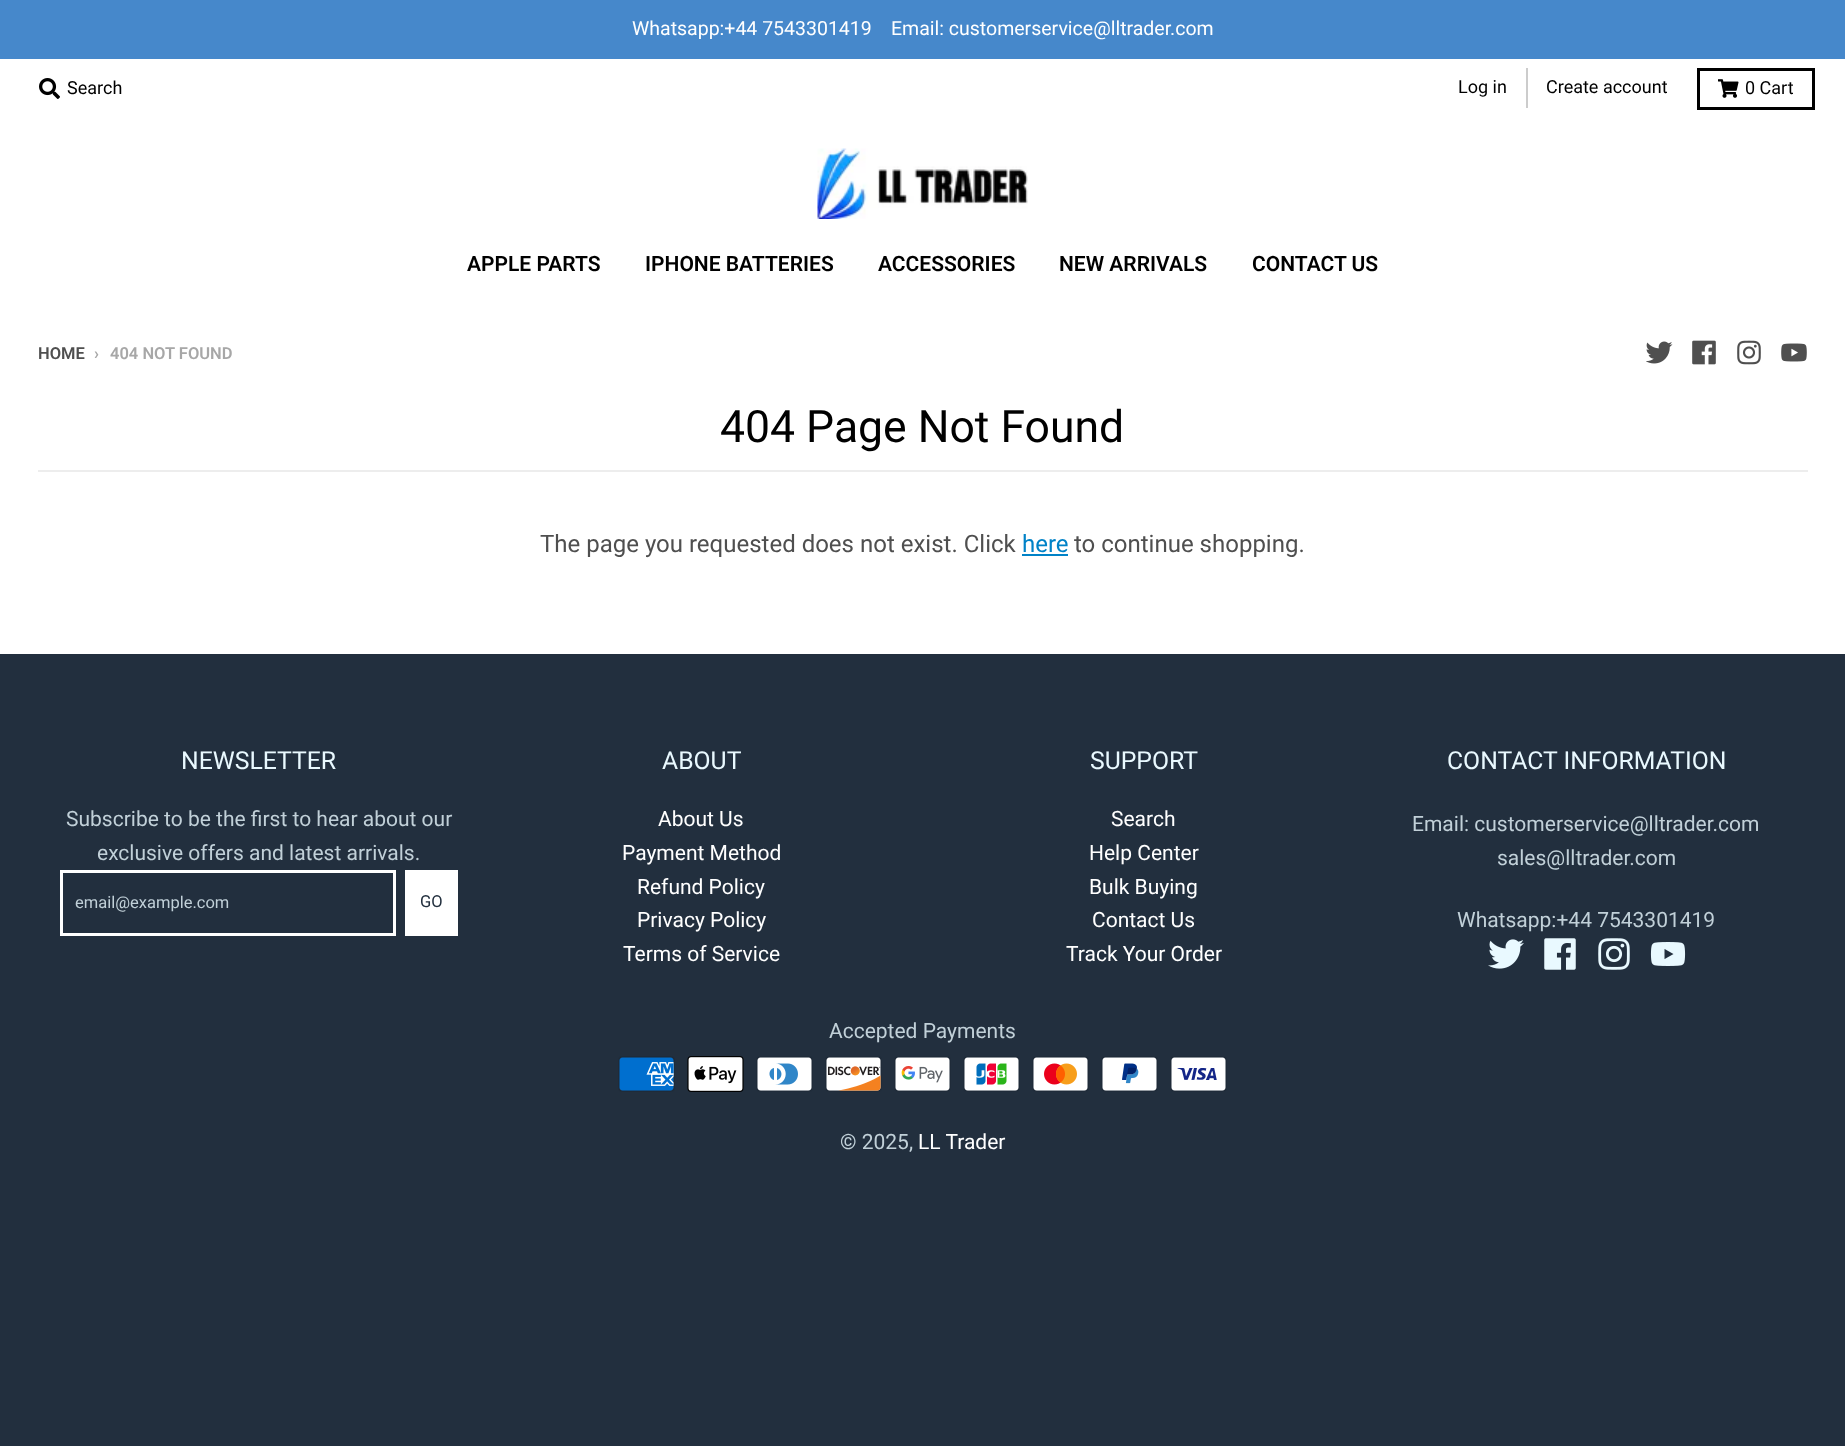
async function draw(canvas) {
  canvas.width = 1845;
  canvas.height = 1446;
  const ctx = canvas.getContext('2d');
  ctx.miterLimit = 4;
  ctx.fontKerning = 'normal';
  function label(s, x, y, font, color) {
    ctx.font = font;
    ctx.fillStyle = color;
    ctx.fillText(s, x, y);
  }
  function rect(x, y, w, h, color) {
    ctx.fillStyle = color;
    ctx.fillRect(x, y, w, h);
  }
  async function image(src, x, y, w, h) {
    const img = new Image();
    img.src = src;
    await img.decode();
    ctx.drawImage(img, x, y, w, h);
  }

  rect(0, 0, 1845, 1446, '#222f3e');
  rect(0, 59, 1845, 595, '#fff');
  rect(0, 0, 1845, 59, '#4688cb');
  label('Whatsapp:+44 7543301419', 632, 35, '19.5px Roboto', '#fff');
  label('Email: customerservice@lltrader.com', 891, 35, '19.5px Roboto', '#fff');
  await image('assets/img1.png', 39, 78, 21, 21);
  label('Search', 67, 94, '18px Roboto', '#000');
  rect(1526, 68, 2, 40, '#ccc');
  label('Log in', 1458, 93, '18px Roboto', '#000');
  label('Create account', 1546, 93, '18px Roboto', '#000');
  ctx.strokeStyle = '#000';
  ctx.lineWidth = 3;
  ctx.strokeRect(1698.5, 69.5, 115, 39);
  await image('assets/img2.png', 1718, 79, 21, 19);
  label('0 Cart', 1745, 94, '18px Roboto', '#000');
  await image('assets/img3.png', 817, 148, 211, 71);
  label('APPLE PARTS', 467, 271, '600 21px Roboto', '#000');
  label('IPHONE BATTERIES', 645, 271, '600 21px Roboto', '#000');
  label('ACCESSORIES', 878, 271, '600 21px Roboto', '#000');
  label('NEW ARRIVALS', 1059, 271, '600 21px Roboto', '#000');
  label('CONTACT US', 1252, 271, '600 21px Roboto', '#000');
  label('HOME', 38, 359, '600 16.5px Roboto', '#4f4f4f');
  label('›', 94, 359, '600 16.5px Roboto', '#a7a7a7');
  label('404 NOT FOUND', 110, 359, '600 16.5px Roboto', '#a7a7a7');
  await image('assets/img4.png', 1646, 341, 27, 23);
  await image('assets/img5.png', 1692, 340, 24, 25);
  await image('assets/img6.png', 1737, 340, 24, 25);
  await image('assets/img7.png', 1781, 343, 26, 19);
  rect(38, 470, 1770, 2, '#ededed');
  label('404 Page Not Found', 720, 442, '44.5px Roboto', '#000');
  label('The page you requested does not exist. Click', 540, 552, '24px Roboto', '#4f4f4f');
  label('here', 1022, 552, '24px Roboto', '#0082c7');
  rect(1022, 554, 46, 2, '#0082c7');
  label('to continue shopping.', 1074, 552, '24px Roboto', '#4f4f4f');
  label('NEWSLETTER', 181, 769, '24.75px Roboto', '#e9f9ff');
  label('Subscribe to be the first to hear about our', 66, 826, '21px Roboto', '#c1d0d8');
  label('exclusive offers and latest arrivals.', 97, 860, '21px Roboto', '#c1d0d8');
  ctx.strokeStyle = '#fff';
  ctx.strokeRect(61.5, 871.5, 333, 63);
  label('email@example.com', 75, 908, '16.5px Roboto', '#c1d0d8');
  rect(405, 870, 53, 66, '#fff');
  label('GO', 420, 907, '16.5px Roboto', '#222f3e');
  label('ABOUT', 662, 769, '24.75px Roboto', '#e9f9ff');
  label('About Us', 658, 826, '21px Roboto', '#fff');
  label('Payment Method', 622, 860, '21px Roboto', '#fff');
  label('Refund Policy', 637, 894, '21px Roboto', '#fff');
  label('Privacy Policy', 637, 927, '21px Roboto', '#fff');
  label('Terms of Service', 623, 961, '21px Roboto', '#fff');
  label('SUPPORT', 1090, 769, '24.75px Roboto', '#e9f9ff');
  label('Search', 1111, 826, '21px Roboto', '#fff');
  label('Help Center', 1089, 860, '21px Roboto', '#fff');
  label('Bulk Buying', 1089, 894, '21px Roboto', '#fff');
  label('Contact Us', 1092, 927, '21px Roboto', '#fff');
  label('Track Your Order', 1066, 961, '21px Roboto', '#fff');
  label('CONTACT INFORMATION', 1447, 769, '24.75px Roboto', '#e9f9ff');
  label('Email: customerservice@lltrader.com', 1412, 831, '21px Roboto', '#c1d0d8');
  label('sales@lltrader.com', 1497, 865, '21px Roboto', '#c1d0d8');
  label('Whatsapp:+44 7543301419', 1457, 927, '21px Roboto', '#c1d0d8');
  await image('assets/img8.png', 1488, 939, 36, 30);
  await image('assets/img9.png', 1544, 938, 32, 32);
  await image('assets/img10.png', 1598, 938, 32, 32);
  await image('assets/img11.png', 1650, 942, 36, 24);
  label('Accepted Payments', 829, 1038, '21px Roboto', '#c1d0d8');
  await image('assets/img12.png', 618, 1056, 57, 36);
  await image('assets/img13.png', 687, 1056, 57, 36);
  await image('assets/img14.png', 756, 1056, 57, 36);
  await image('assets/img15.png', 825, 1056, 57, 36);
  await image('assets/img16.png', 894, 1056, 57, 36);
  await image('assets/img17.png', 963, 1056, 57, 36);
  await image('assets/img18.png', 1032, 1056, 57, 36);
  await image('assets/img19.png', 1101, 1056, 57, 36);
  await image('assets/img20.png', 1170, 1056, 57, 36);
  label('© 2025,', 840, 1149, '21px Roboto', '#c1d0d8');
  label('LL Trader', 918, 1149, '21px Roboto', '#fff');
}

draw(document.querySelector('canvas'));
